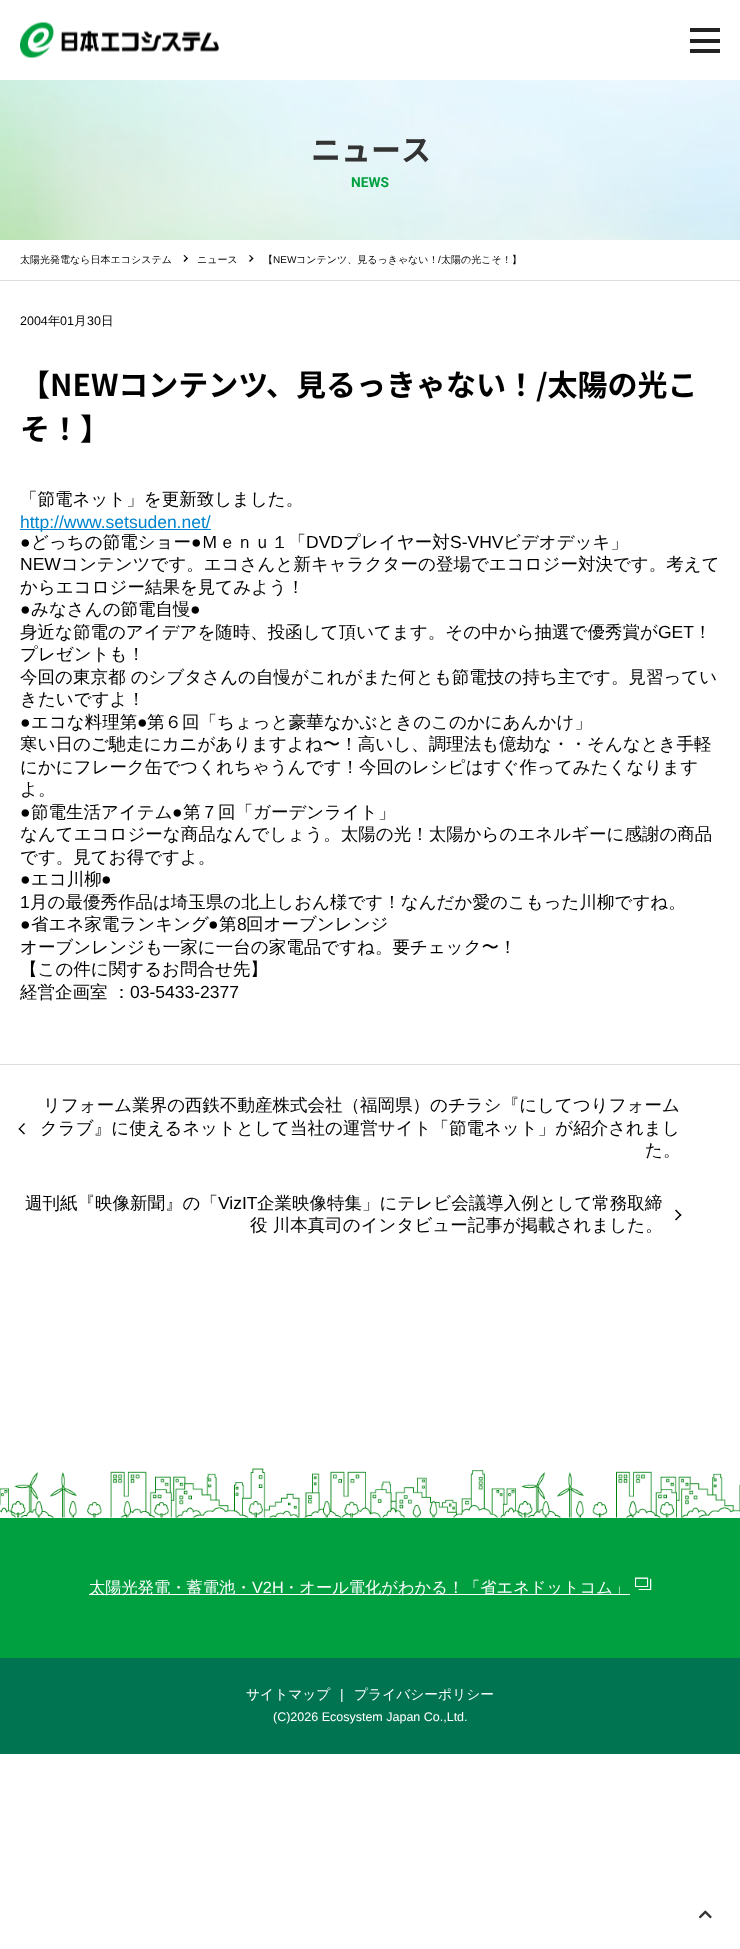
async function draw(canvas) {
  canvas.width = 740;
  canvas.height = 1949;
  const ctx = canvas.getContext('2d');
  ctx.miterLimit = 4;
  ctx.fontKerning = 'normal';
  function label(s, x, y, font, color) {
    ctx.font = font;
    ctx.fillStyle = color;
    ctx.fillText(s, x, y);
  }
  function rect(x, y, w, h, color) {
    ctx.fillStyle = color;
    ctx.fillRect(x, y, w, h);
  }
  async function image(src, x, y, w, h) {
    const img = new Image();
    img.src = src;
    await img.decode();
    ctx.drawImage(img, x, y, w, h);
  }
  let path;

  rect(0, 0, 740, 1949, '#fff');
  await image('assets/img1.png', 20, 22, 199, 36);
  rect(690, 28, 30, 4, '#222');
  rect(690, 39, 30, 4, '#222');
  rect(690, 49, 30, 4, '#222');
  await image('assets/img2.png', 0, 80, 740, 160);
  label('ニュース', 311, 161, 'bold 30px Noto Sans JP', '#333');
  label('NEWS', 351, 187, 'bold 13.75px Roboto', '#00a040');
  rect(0, 280, 740, 1, '#ddd');
  label('太陽光発電なら日本エコシステム', 20, 263, '500 10px WenQuanYi Zen Hei', '#000');
  path = new Path2D('M183.5 255.5L184.5 255L188 258.5L187 259Z');
  ctx.fill(path);
  path = new Path2D('M183.5 261L187 257.5L188 258.5L184.5 262Z');
  ctx.fill(path);
  label('ニュース', 197, 263, '500 10px WenQuanYi Zen Hei', '#000');
  path = new Path2D('M249 255.5L250 255L253.5 258.5L252.5 259Z');
  ctx.fill(path);
  path = new Path2D('M249 261L252.5 257.5L253.5 258.5L250 262Z');
  ctx.fill(path);
  label('【', 263, 263, '500 10px WenQuanYi Zen Hei', '#000');
  label('NEW', 273, 263, '10px Liberation Sans', '#000');
  label('コンテンツ、見るっきゃない！', 296, 263, '500 10px WenQuanYi Zen Hei', '#000');
  label('/', 438, 263, '10px Liberation Sans', '#000');
  label('太陽の光こそ！】', 441, 263, '500 10px WenQuanYi Zen Hei', '#000');
  label('2004', 20, 325, '12.5px Liberation Sans', '#000');
  label('年', 48, 325, '500 12.5px WenQuanYi Zen Hei', '#000');
  label('01', 60, 325, '12.5px Liberation Sans', '#000');
  label('月', 74, 325, '500 12.5px WenQuanYi Zen Hei', '#000');
  label('30', 87, 325, '12.5px Liberation Sans', '#000');
  label('日', 101, 325, '500 12.5px WenQuanYi Zen Hei', '#000');
  label('【NEWコンテンツ、見るっきゃない！/太陽の光こ', 20, 396, 'bold 30px Noto Sans JP', '#000');
  label('そ！】', 20, 440, 'bold 30px Noto Sans JP', '#000');
  rect(0, 1064, 740, 1, '#ddd');
  label('「節電ネット」を更新致しました。', 20, 505, '500 17.5px WenQuanYi Zen Hei', '#000');
  rect(20, 529, 191, 1, '#0084cd');
  label('http://www.setsuden.net/', 20, 528, '17.5px Liberation Sans', '#0084cd');
  label('●', 20, 548, '17.5px Liberation Sans', '#000');
  label('どっちの節電ショー', 31, 548, '500 17.5px WenQuanYi Zen Hei', '#000');
  label('●', 191, 548, '17.5px Liberation Sans', '#000');
  label('Ｍｅｎｕ１「', 201, 548, '500 17.5px WenQuanYi Zen Hei', '#000');
  label('DVD', 306, 548, '17.5px Liberation Sans', '#000');
  label('プレイヤー対', 343, 548, '500 17.5px WenQuanYi Zen Hei', '#000');
  label('S-VHV', 450, 548, '17.5px Liberation Sans', '#000');
  label('ビデオデッキ」', 503, 548, '500 17.5px WenQuanYi Zen Hei', '#000');
  label('NEW', 20, 570, '17.5px Liberation Sans', '#000');
  label('コンテンツです。エコさんと新キャラクターの登場でエコロジー対決です。考えて', 61, 570, '500 17.5px WenQuanYi Zen Hei', '#000');
  label('からエコロジー結果を見てみよう！', 20, 593, '500 17.5px WenQuanYi Zen Hei', '#000');
  label('●', 20, 615, '17.5px Liberation Sans', '#000');
  label('みなさんの節電自慢', 31, 615, '500 17.5px WenQuanYi Zen Hei', '#000');
  label('●', 190, 615, '17.5px Liberation Sans', '#000');
  label('身近な節電のアイデアを随時、投函して頂いてます。その中から抽選で優秀賞が', 20, 638, '500 17.5px WenQuanYi Zen Hei', '#000');
  label('GET', 658, 638, '17.5px Liberation Sans', '#000');
  label('！', 694, 638, '500 17.5px WenQuanYi Zen Hei', '#000');
  label('プレゼントも！', 20, 660, '500 17.5px WenQuanYi Zen Hei', '#000');
  label('今回の東京都 のシブタさんの自慢がこれがまた何とも節電技の持ち主です。見習ってい', 20, 683, '500 17.5px WenQuanYi Zen Hei', '#000');
  label('きたいですよ！', 20, 705, '500 17.5px WenQuanYi Zen Hei', '#000');
  label('●', 20, 728, '17.5px Liberation Sans', '#000');
  label('エコな料理第', 31, 728, '500 17.5px WenQuanYi Zen Hei', '#000');
  label('●', 137, 728, '17.5px Liberation Sans', '#000');
  label('第６回「ちょっと豪華なかぶときのこのかにあんかけ」', 147, 728, '500 17.5px WenQuanYi Zen Hei', '#000');
  label('寒い日のご馳走にカニがありますよね〜！高いし、調理法も億劫な・・そんなとき手軽', 20, 750, '500 17.5px WenQuanYi Zen Hei', '#000');
  label('にかにフレーク缶でつくれちゃうんです！今回のレシピはすぐ作ってみたくなります', 20, 773, '500 17.5px WenQuanYi Zen Hei', '#000');
  label('よ。', 20, 795, '500 17.5px WenQuanYi Zen Hei', '#000');
  label('●', 20, 818, '17.5px Liberation Sans', '#000');
  label('節電生活アイテム', 31, 818, '500 17.5px WenQuanYi Zen Hei', '#000');
  label('●', 172, 818, '17.5px Liberation Sans', '#000');
  label('第７回「ガーデンライト」', 183, 818, '500 17.5px WenQuanYi Zen Hei', '#000');
  label('なんてエコロジーな商品なんでしょう。太陽の光！太陽からのエネルギーに感謝の商品', 20, 840, '500 17.5px WenQuanYi Zen Hei', '#000');
  label('です。見てお得ですよ。', 20, 863, '500 17.5px WenQuanYi Zen Hei', '#000');
  label('●', 20, 885, '17.5px Liberation Sans', '#000');
  label('エコ川柳', 31, 885, '500 17.5px WenQuanYi Zen Hei', '#000');
  label('●', 101, 885, '17.5px Liberation Sans', '#000');
  label('1', 20, 908, '17.5px Liberation Sans', '#000');
  label('月の最優秀作品は埼玉県の北上しおん様です！なんだか愛のこもった川柳ですね。', 30, 908, '500 17.5px WenQuanYi Zen Hei', '#000');
  label('●', 20, 930, '17.5px Liberation Sans', '#000');
  label('省エネ家電ランキング', 31, 930, '500 17.5px WenQuanYi Zen Hei', '#000');
  label('●', 208, 930, '17.5px Liberation Sans', '#000');
  label('第', 219, 930, '500 17.5px WenQuanYi Zen Hei', '#000');
  label('8', 237, 930, '17.5px Liberation Sans', '#000');
  label('回オーブンレンジ', 246, 930, '500 17.5px WenQuanYi Zen Hei', '#000');
  label('オーブンレンジも一家に一台の家電品ですね。要チェック〜！', 20, 953, '500 17.5px WenQuanYi Zen Hei', '#000');
  label('【この件に関するお問合せ先】', 20, 975, '500 17.5px WenQuanYi Zen Hei', '#000');
  label('経営企画室 ：', 20, 998, '500 17.5px WenQuanYi Zen Hei', '#000');
  label('03-5433-2377', 130, 998, '17.5px Liberation Sans', '#000');
  label('リフォーム業界の西鉄不動産株式会社（福岡県）のチラシ『にしてつりフォーム', 43, 1111, '500 17.5px WenQuanYi Zen Hei', '#000');
  path = new Path2D('M19.5 1128L25 1133.5L24 1134.5L18.5 1129Z');
  ctx.fill(path);
  path = new Path2D('M24 1123L25 1124L19.5 1129.5L18.5 1129Z');
  ctx.fill(path);
  label('クラブ』に使えるネットとして当社の運営サイト「節電ネット」が紹介されまし', 40, 1134, '500 17.5px WenQuanYi Zen Hei', '#000');
  label('た。', 645, 1156, '500 17.5px WenQuanYi Zen Hei', '#000');
  label('週刊紙『映像新聞』の「', 25, 1209, '500 17.5px WenQuanYi Zen Hei', '#000');
  label('VizIT', 218, 1209, '17.5px Liberation Sans', '#000');
  label('企業映像特集」にテレビ会議導入例として常務取締', 257, 1209, '500 17.5px WenQuanYi Zen Hei', '#000');
  label('役 川本真司のインタビュー記事が掲載されました。', 250, 1231, '500 17.5px WenQuanYi Zen Hei', '#000');
  path = new Path2D('M676 1209.5L681.5 1215L680.5 1216L675 1210.5Z');
  ctx.fill(path);
  path = new Path2D('M680.5 1214L681.5 1215L676 1220.5L675 1219.5Z');
  ctx.fill(path);
  await image('assets/img3.png', 0, 1468, 740, 50);
  rect(0, 1518, 740, 140, '#00a040');
  rect(89, 1594, 541, 1, '#fff');
  label('太陽光発電・蓄電池・', 89, 1593, '500 16.25px WenQuanYi Zen Hei', '#fff');
  label('V2H', 252, 1593, '16.25px Liberation Sans', '#fff');
  label('・オール電化がわかる！「省エネドットコム」', 283, 1593, '500 16.25px WenQuanYi Zen Hei', '#fff');
  await image('assets/img4.png', 635, 1577, 17, 13);
  rect(0, 1658, 740, 96, '#007451');
  label('サイトマップ', 246, 1699, '500 13.75px WenQuanYi Zen Hei', '#fff');
  label('|', 340, 1699, '13.75px Liberation Sans', '#fff');
  label('プライバシーポリシー', 354, 1699, '500 13.75px WenQuanYi Zen Hei', '#fff');
  label('(C)2026 Ecosystem Japan Co.,Ltd.', 273, 1721, '12.5px Liberation Sans', '#fff');
  await image('assets/img5.png', 699, 1910, 13, 9);
}

draw(document.querySelector('canvas'));
